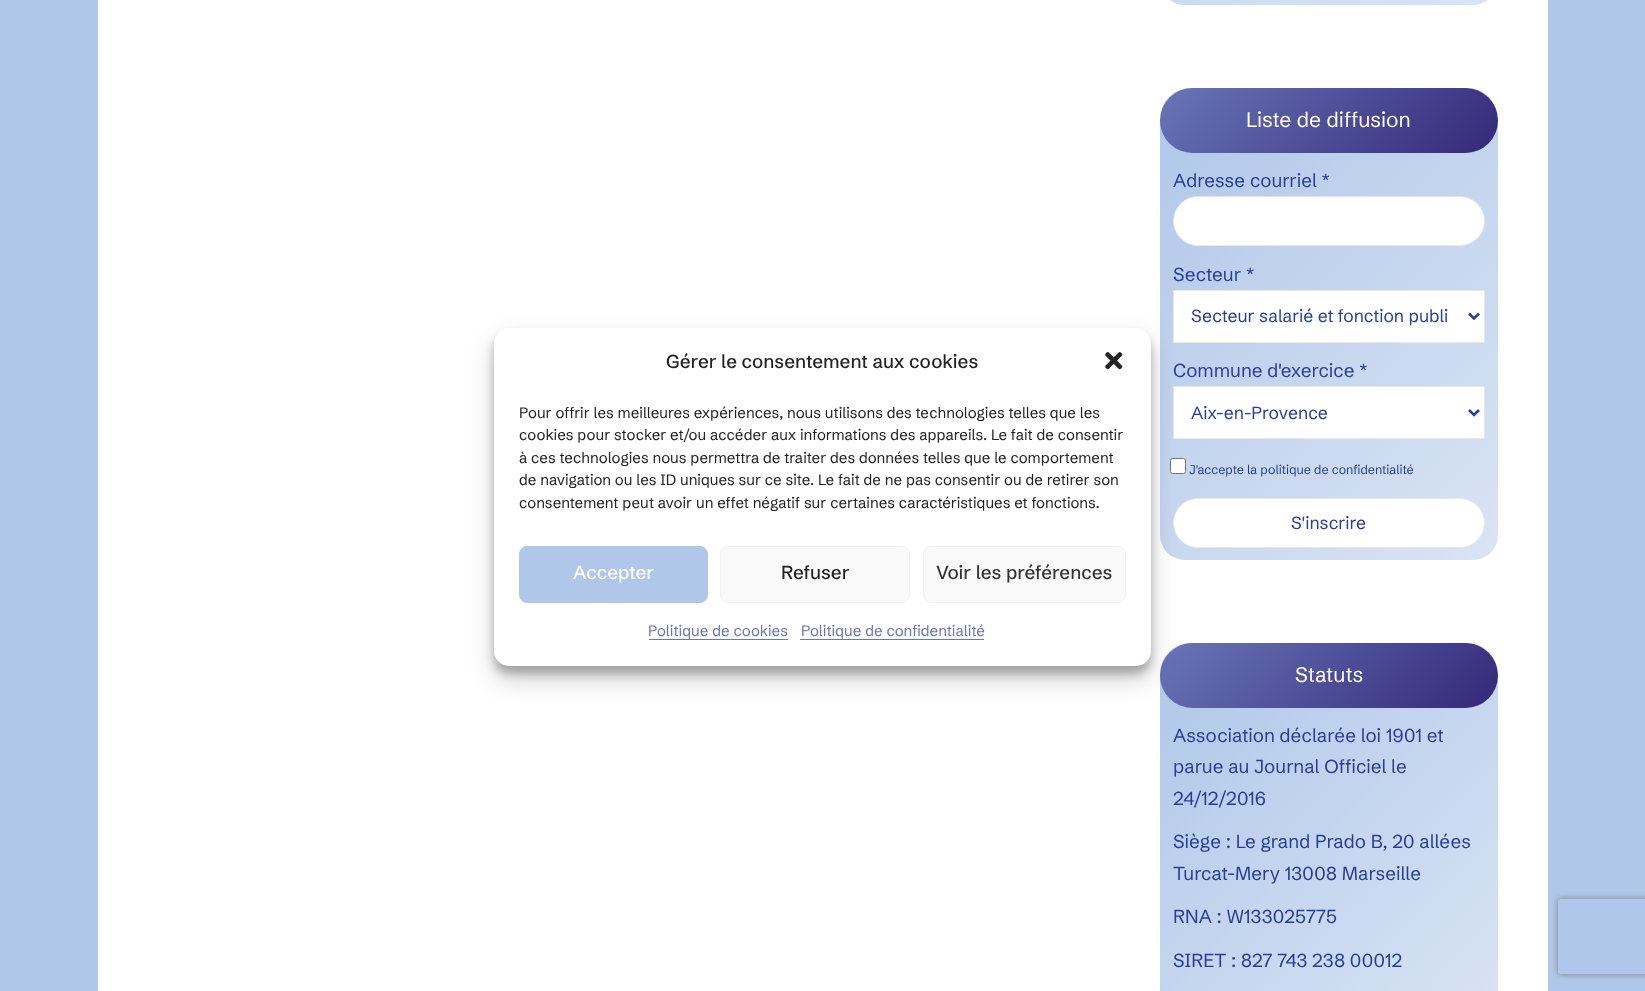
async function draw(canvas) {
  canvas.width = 1645;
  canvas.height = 991;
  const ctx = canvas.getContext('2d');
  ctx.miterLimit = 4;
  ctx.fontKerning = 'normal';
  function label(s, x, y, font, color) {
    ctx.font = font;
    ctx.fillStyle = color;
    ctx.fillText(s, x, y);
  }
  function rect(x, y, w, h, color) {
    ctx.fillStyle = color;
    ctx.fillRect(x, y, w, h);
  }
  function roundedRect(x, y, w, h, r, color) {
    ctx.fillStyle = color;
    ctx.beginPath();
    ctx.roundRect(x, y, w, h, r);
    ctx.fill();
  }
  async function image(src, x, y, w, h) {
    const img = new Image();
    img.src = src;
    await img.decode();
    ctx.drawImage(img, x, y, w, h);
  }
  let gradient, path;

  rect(0, 0, 1645, 991, '#b0c7e9');
  rect(98, 0, 1450, 991, '#fff');
  gradient = ctx.createLinearGradient(1126, 121, 1531, 526);
  gradient.addColorStop(0.01, '#b0c7e9');
  gradient.addColorStop(1, '#d9e4f4');
  ctx.fillStyle = gradient;
  ctx.beginPath();
  ctx.roundRect(1160, 88, 338, 472, [31, 31, 25, 25]);
  ctx.fill();
  gradient = ctx.createLinearGradient(1147, 656, 1511, 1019);
  gradient.addColorStop(0.01, '#b0c7e9');
  gradient.addColorStop(0.99, '#d9e4f4');
  ctx.fillStyle = gradient;
  path = new Path2D('M1191 643H1467C1484 643 1498 657 1498 674V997C1498 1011 1487 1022 1473 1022H1185C1171 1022 1160 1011 1160 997V674C1160 657 1174 643 1191 643Z');
  ctx.fill(path);
  ctx.save();
  ctx.beginPath();
  ctx.roundRect(1160, 643, 338, 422, 31);
  ctx.clip();
  gradient = ctx.createLinearGradient(1228, 574, 1429, 776);
  gradient.addColorStop(0, '#6976b8');
  gradient.addColorStop(1, '#342879');
  ctx.fillStyle = gradient;
  ctx.beginPath();
  ctx.roundRect(1160, 643, 338, 65, 32.5);
  ctx.fill();
  ctx.restore();
  ctx.fillStyle = '#0000003b';
  ctx.filter = 'blur(4px)';
  ctx.beginPath();
  ctx.roundRect(494, 335, 657, 339, 15);
  ctx.fill();
  ctx.filter = 'none';
  ctx.fillStyle = '#fff';
  ctx.beginPath();
  ctx.rect(1173.5, 290.5, 311, 52);
  ctx.fill();
  ctx.strokeStyle = '#e8e8e8';
  ctx.stroke();
  ctx.beginPath();
  ctx.rect(1173.5, 386.5, 311, 52);
  ctx.fill();
  ctx.stroke();
  ctx.beginPath();
  ctx.roundRect(1170.5, 458.5, 15, 15, 2);
  ctx.fill();
  ctx.strokeStyle = '#767676';
  ctx.stroke();
  ctx.beginPath();
  ctx.roundRect(1173.5, 498.5, 311, 49, 24.5);
  ctx.fill();
  ctx.strokeStyle = '#e8e8e8';
  ctx.stroke();
  ctx.fillStyle = '#00000030';
  ctx.filter = 'blur(12.5px)';
  ctx.beginPath();
  ctx.roundRect(494, 340, 657, 339, 15);
  ctx.fill();
  ctx.filter = 'none';
  roundedRect(494, 328, 657, 338, 15, '#fff');
  label('Gérer le consentement aux cookies', 666, 368, '500 18.75px Schibsted Grotesk', '#222');
  await image('assets/img1.png', 1105, 352, 18, 18);
  label('Pour offrir les meilleures expériences, nous utilisons des technologies telles que les', 519, 418, '15px Schibsted Grotesk', '#222');
  label('cookies pour stocker et/ou accéder aux informations des appareils. Le fait de consentir', 519, 440, '15px Schibsted Grotesk', '#222');
  label('à ces technologies nous permettra de traiter des données telles que le comportement', 519, 463, '15px Schibsted Grotesk', '#222');
  label('de navigation ou les ID uniques sur ce site. Le fait de ne pas consentir ou de retirer son', 519, 485, '15px Schibsted Grotesk', '#222');
  label('consentement peut avoir un effet négatif sur certaines caractéristiques et fonctions.', 519, 508, '15px Schibsted Grotesk', '#222');
  ctx.fillStyle = '#b0c7e9';
  ctx.beginPath();
  ctx.roundRect(519.5, 546.5, 188, 56, 7.5);
  ctx.fill();
  ctx.strokeStyle = '#b0c7e9';
  ctx.stroke();
  label('Accepter', 573, 579, '500 18.75px Schibsted Grotesk', '#fff');
  ctx.fillStyle = '#f9f9f9';
  ctx.beginPath();
  ctx.roundRect(720.5, 546.5, 189, 56, 7.5);
  ctx.fill();
  ctx.strokeStyle = '#f2f2f2';
  ctx.stroke();
  label('Refuser', 781, 579, '500 18.75px Schibsted Grotesk', '#222');
  ctx.fillStyle = '#f9f9f9';
  ctx.beginPath();
  ctx.roundRect(923.5, 546.5, 202, 56, 7.5);
  ctx.fill();
  ctx.stroke();
  label('Voir les préférences', 936, 579, '500 18.75px Schibsted Grotesk', '#333');
  label('Politique de cookies', 648, 636, '15px Schibsted Grotesk', '#6976b8');
  rect(649, 639, 139, 1, '#6976b8');
  label('Politique de confidentialité', 801, 636, '15px Schibsted Grotesk', '#6976b8');
  rect(800, 639, 184, 1, '#6976b8');
  gradient = ctx.createLinearGradient(1074, -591, 1584, -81);
  gradient.addColorStop(0, '#b0c7e9');
  gradient.addColorStop(1, '#d9e4f4');
  ctx.fillStyle = gradient;
  path = new Path2D('M1191-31H1467C1484-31 1498-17 1498 0V-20C1498-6 1487 5 1473 5H1185C1171 5 1160-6 1160-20V0C1160-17 1174-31 1191-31Z');
  ctx.fill(path);
  ctx.save();
  ctx.beginPath();
  ctx.roundRect(1160, 88, 338, 505, 31);
  ctx.clip();
  gradient = ctx.createLinearGradient(1228, 19, 1429, 221);
  gradient.addColorStop(0, '#6976b8');
  gradient.addColorStop(1, '#342879');
  ctx.fillStyle = gradient;
  ctx.beginPath();
  ctx.roundRect(1160, 88, 338, 65, 32.5);
  ctx.fill();
  ctx.restore();
  label('Liste de diffusion', 1246, 127, '21px Schibsted Grotesk', '#fff');
  label('Adresse courriel *', 1173, 187, '18.75px Schibsted Grotesk', '#263d9e');
  ctx.fillStyle = '#fff';
  ctx.beginPath();
  ctx.roundRect(1173.5, 196.5, 311, 49, 24.5);
  ctx.fill();
  ctx.strokeStyle = '#e8e8e8';
  ctx.stroke();
  label('Secteur *', 1173, 281, '18.75px Schibsted Grotesk', '#263d9e');
  path = new Path2D('M1469 313.5L1474 318.5L1479 313.5');
  ctx.strokeStyle = '#263d9e';
  ctx.lineWidth = 2.5;
  ctx.stroke(path);
  label('Secteur salarié et fonction publi', 1191, 322, '17.5px Schibsted Grotesk', '#263d9e');
  label('Commune d\'exercice *', 1173, 377, '18.75px Schibsted Grotesk', '#263d9e');
  path = new Path2D('M1469 410L1474 415L1479 410');
  ctx.stroke(path);
  label('Aix-en-Provence', 1191, 419, '17.5px Schibsted Grotesk', '#263d9e');
  label('J\'accepte la politique de confidentialité', 1189, 474, '12.5px Schibsted Grotesk', '#263d9e');
  label('S\'inscrire', 1291, 529, '17.5px Schibsted Grotesk', '#263d9e');
  ctx.save();
  path = new Path2D('M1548 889H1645V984H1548ZM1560.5 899H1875.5C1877 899 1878 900 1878 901.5V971.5C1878 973 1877 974 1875.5 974H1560.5C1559 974 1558 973 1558 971.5V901.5C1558 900 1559 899 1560.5 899Z');
  ctx.clip(path, 'evenodd');
  ctx.fillStyle = '#808080';
  ctx.filter = 'blur(3px)';
  ctx.beginPath();
  ctx.roundRect(1558, 899, 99, 75, 2.5);
  ctx.fill();
  ctx.filter = 'none';
  ctx.restore();
  label('Statuts', 1295, 682, '21px Schibsted Grotesk', '#fff');
  label('Association déclarée loi 1901 et', 1173, 742, '18.75px Schibsted Grotesk', '#263d9e');
  label('parue au Journal Officiel le', 1173, 773, '18.75px Schibsted Grotesk', '#263d9e');
  label('24/12/2016', 1173, 805, '18.75px Schibsted Grotesk', '#263d9e');
  label('Siège : Le grand Prado B, 20 allées', 1173, 848, '18.75px Schibsted Grotesk', '#263d9e');
  label('Turcat-Mery 13008 Marseille', 1173, 880, '18.75px Schibsted Grotesk', '#263d9e');
  label('RNA : W133025775', 1173, 923, '18.75px Schibsted Grotesk', '#263d9e');
  label('SIRET : 827 743 238 00012', 1173, 967, '18.75px Schibsted Grotesk', '#263d9e');
}

draw(document.querySelector('canvas'));
